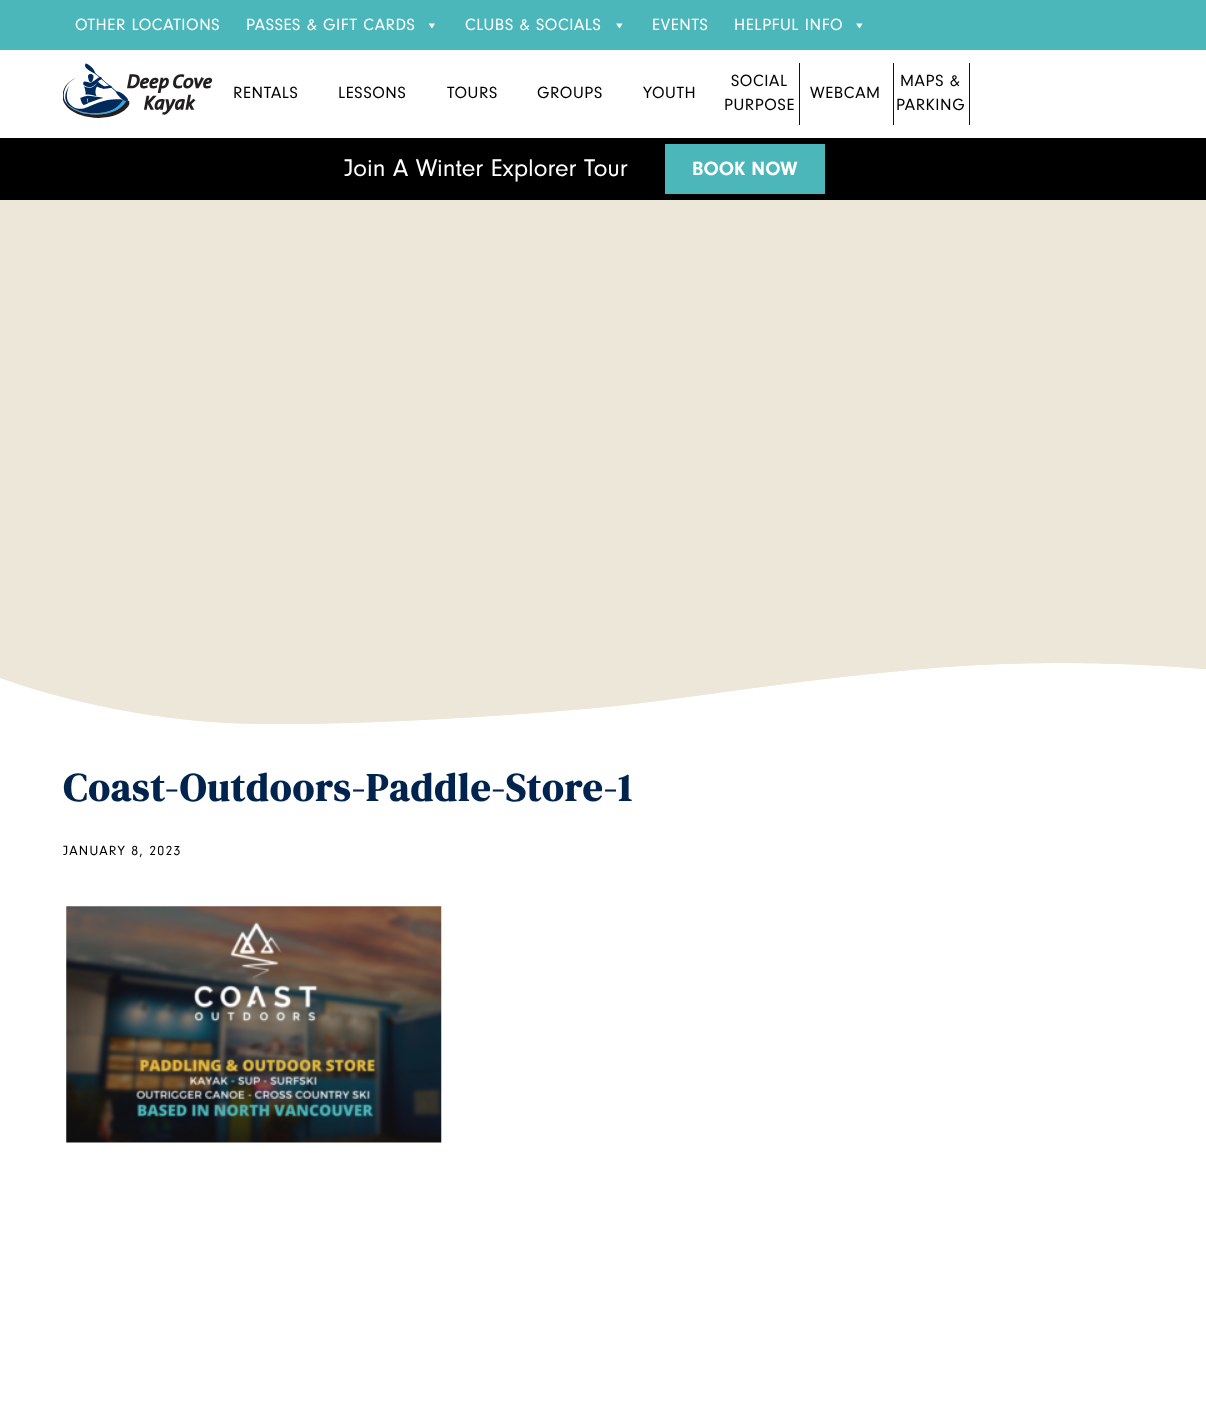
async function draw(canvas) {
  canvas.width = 1206;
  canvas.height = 1428;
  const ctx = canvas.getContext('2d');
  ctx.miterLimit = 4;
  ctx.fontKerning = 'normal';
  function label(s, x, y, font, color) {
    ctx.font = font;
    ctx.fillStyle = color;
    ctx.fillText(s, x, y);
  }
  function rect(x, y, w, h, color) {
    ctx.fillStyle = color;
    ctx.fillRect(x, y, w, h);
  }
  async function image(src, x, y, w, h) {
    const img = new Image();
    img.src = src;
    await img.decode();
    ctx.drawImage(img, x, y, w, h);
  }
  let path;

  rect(0, 0, 1206, 1428, '#fff');
  rect(0, 0, 1206, 50, '#4cb7ba');
  ctx.letterSpacing = '0.6px';
  label('OTHER LOCATIONS', 75, 30, '16.9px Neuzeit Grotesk', '#fff');
  label('PASSES & GIFT CARDS', 246, 30, '16.9px Neuzeit Grotesk', '#fff');
  path = new Path2D('M435 23.5L432 28.5L428.5 23.5Z');
  ctx.fill(path);
  label('CLUBS & SOCIALS', 465, 30, '16.9px Neuzeit Grotesk', '#fff');
  path = new Path2D('M622.5 23.5L619.5 28.5L616 23.5Z');
  ctx.fill(path);
  label('EVENTS', 652, 30, '16.9px Neuzeit Grotesk', '#fff');
  label('HELPFUL INFO', 734, 30, '16.9px Neuzeit Grotesk', '#fff');
  path = new Path2D('M862.5 23.5L859.5 28.5L856 23.5Z');
  ctx.fill(path);
  await image('assets/img1.png', 63, 63, 150, 55);
  label('RENTALS', 233, 98, '16.9px Neuzeit Grotesk', '#000');
  label('LESSONS', 338, 98, '16.9px Neuzeit Grotesk', '#000');
  label('TOURS', 447, 98, '16.9px Neuzeit Grotesk', '#000');
  label('GROUPS', 537, 98, '16.9px Neuzeit Grotesk', '#000');
  label('YOUTH', 643, 98, '16.9px Neuzeit Grotesk', '#000');
  label('SOCIAL', 731, 86, '16.9px Neuzeit Grotesk', '#000');
  rect(799, 63, 1, 62, '#080c3e');
  label('PURPOSE', 724, 110, '16.9px Neuzeit Grotesk', '#000');
  label('WEBCAM', 810, 98, '16.9px Neuzeit Grotesk', '#000');
  rect(893, 63, 1, 62, '#080c3e');
  label('MAPS &', 900, 86, '16.9px Neuzeit Grotesk', '#000');
  rect(969, 63, 1, 62, '#080c3e');
  label('PARKING', 896, 110, '16.9px Neuzeit Grotesk', '#000');
  rect(0, 138, 1206, 62, '#000');
  ctx.letterSpacing = '0px';
  label('Join A Winter Explorer Tour', 344, 176, '25px Neuzeit Grotesk', '#fff');
  rect(665, 144, 160, 50, '#4cb7ba');
  label('BOOK NOW', 692, 175, 'bold 20px Neuzeit Grotesk', '#fff');
  await image('assets/img2.png', 0, 200, 1206, 524);
  ctx.letterSpacing = '1.25px';
  label('Coast-Outdoors-Paddle-Store-1', 63, 801, 'bold 39.2px DM Serif Display', '#00244d');
  label('JANUARY 8, 2023', 63, 855, '13.75px Neuzeit Grotesk', '#000');
  await image('assets/img3.png', 66, 906, 376, 237);
}

draw(document.querySelector('canvas'));
